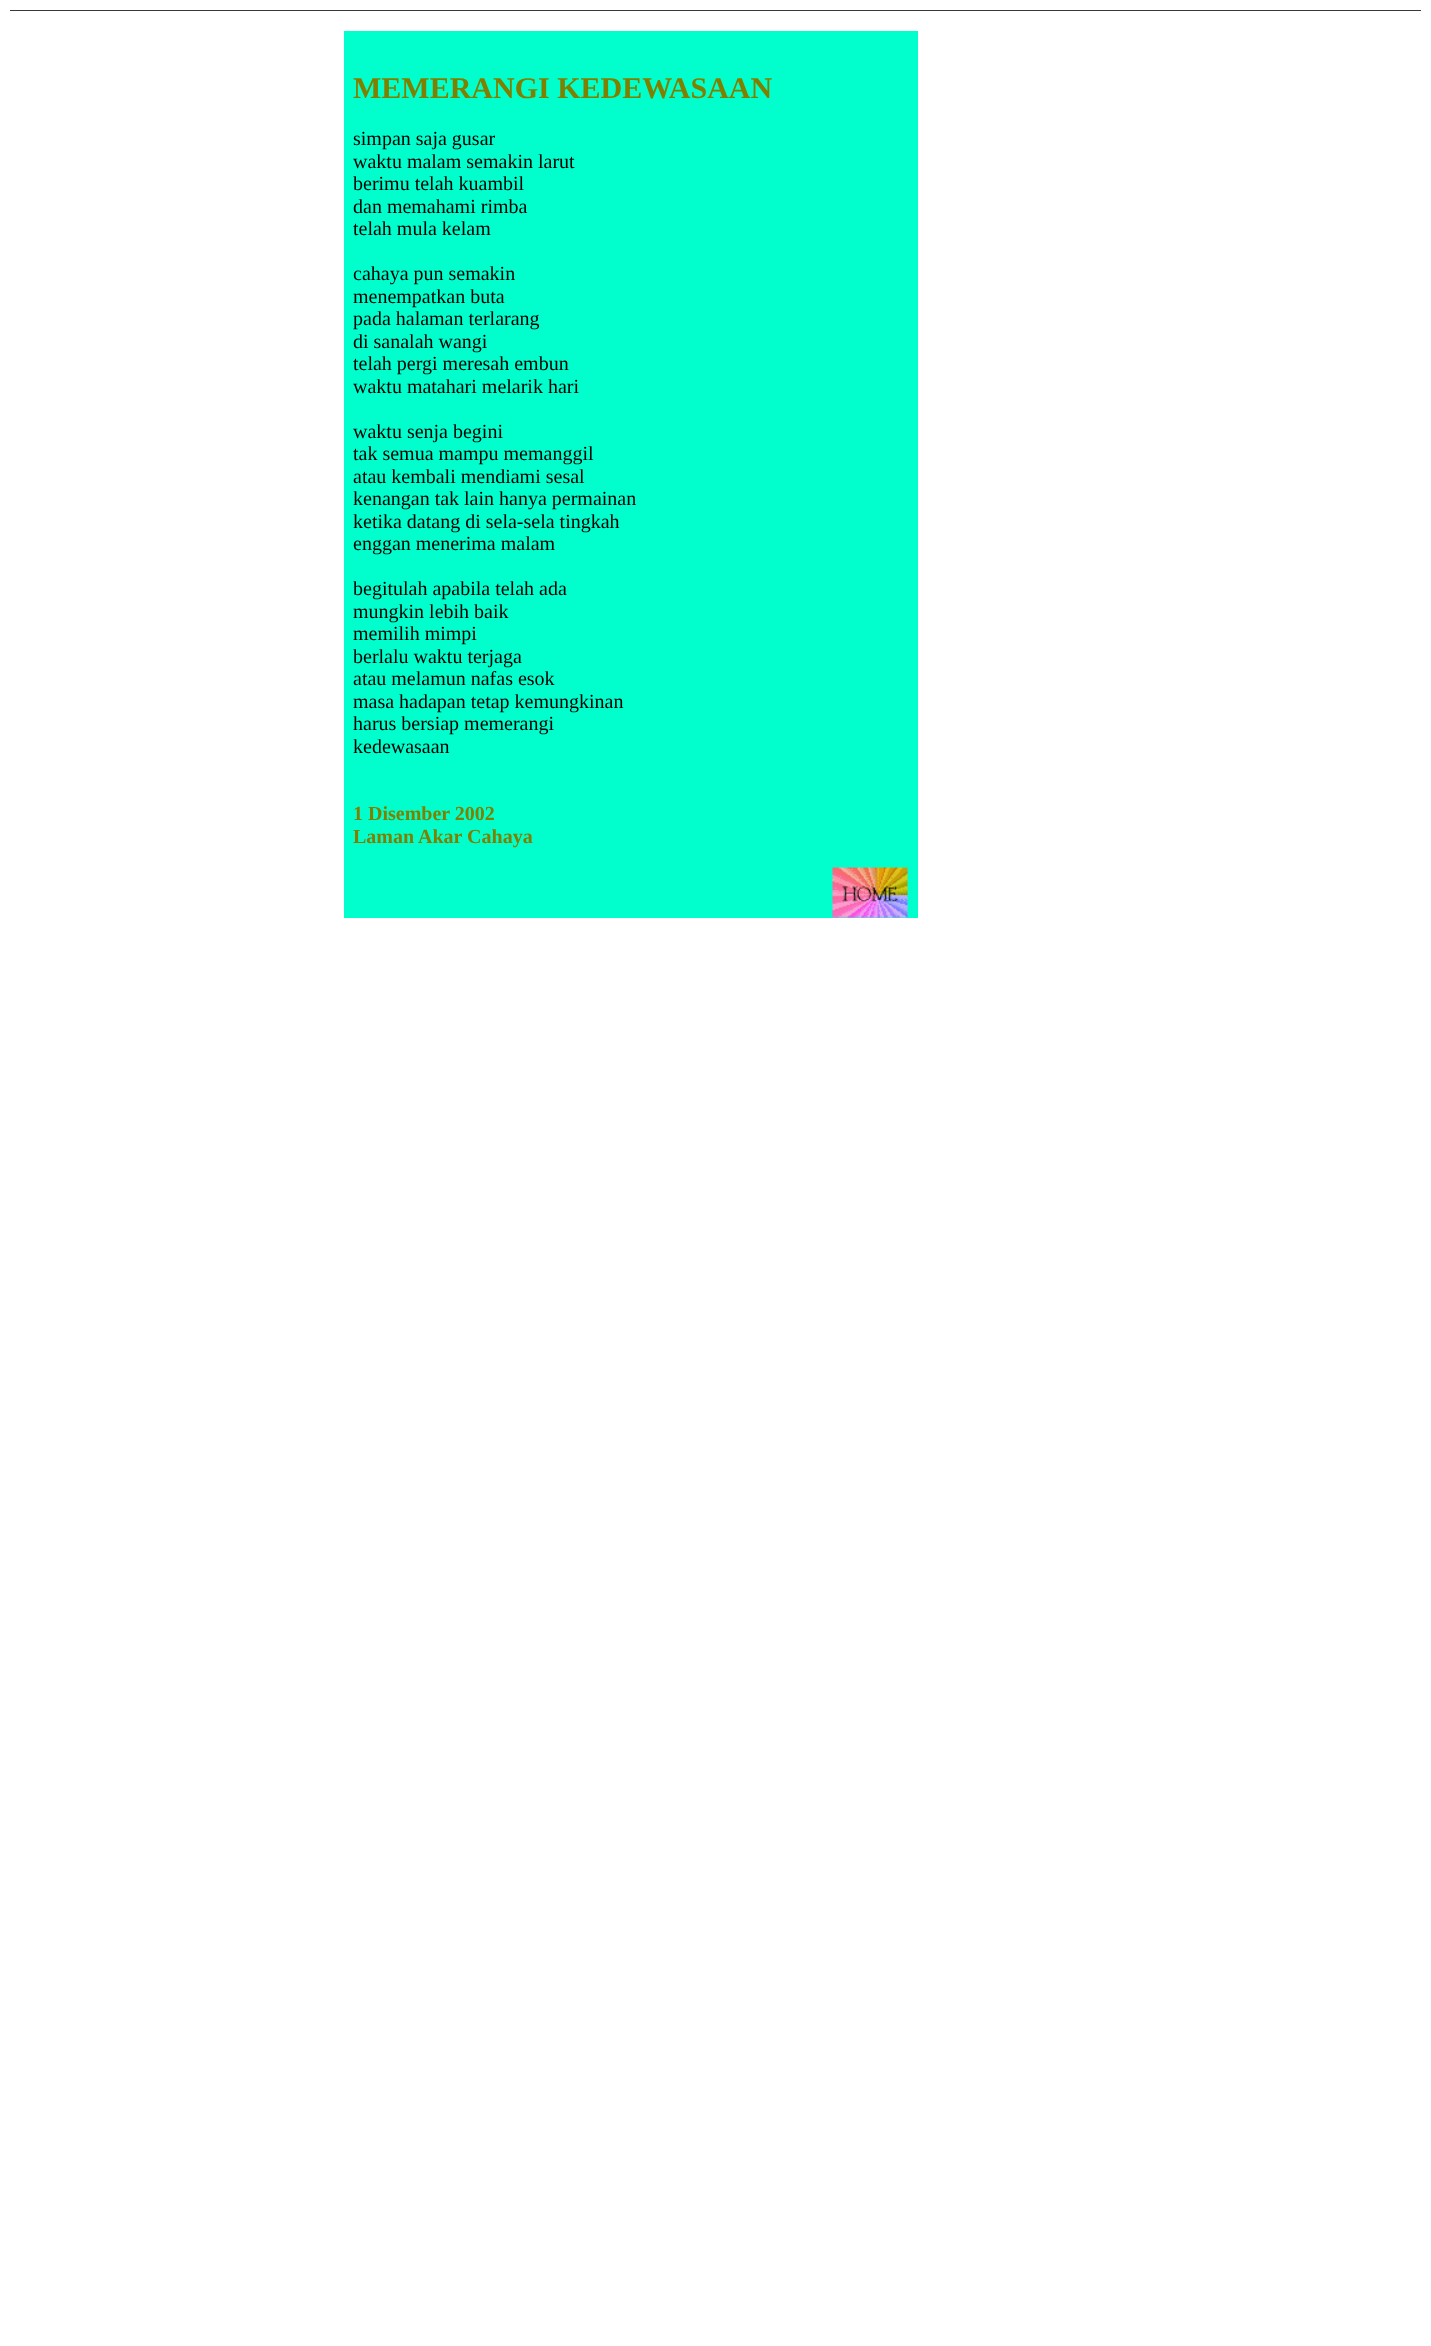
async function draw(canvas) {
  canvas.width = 1431;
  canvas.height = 2346;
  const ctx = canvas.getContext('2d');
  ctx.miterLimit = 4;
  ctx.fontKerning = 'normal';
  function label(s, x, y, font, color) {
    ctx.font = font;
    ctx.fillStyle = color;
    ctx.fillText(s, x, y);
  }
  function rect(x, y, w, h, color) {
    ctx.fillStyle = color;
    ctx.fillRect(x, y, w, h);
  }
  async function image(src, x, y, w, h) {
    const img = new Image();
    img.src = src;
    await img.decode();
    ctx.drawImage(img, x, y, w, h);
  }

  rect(0, 0, 1431, 2346, '#fff');
  rect(10, 10, 1411, 1, '#393939');
  rect(344, 31, 574, 887, '#0fc');
  label('MEMERANGI KEDEWASAAN', 353, 98, 'bold 30px Liberation Serif', '#808000');
  label('simpan saja gusar', 353, 145, '20px Liberation Serif', '#000');
  label('waktu malam semakin larut', 353, 168, '20px Liberation Serif', '#000');
  label('berimu telah kuambil', 353, 190, '20px Liberation Serif', '#000');
  label('dan memahami rimba', 353, 213, '20px Liberation Serif', '#000');
  label('telah mula kelam', 353, 235, '20px Liberation Serif', '#000');
  label('cahaya pun semakin', 353, 280, '20px Liberation Serif', '#000');
  label('menempatkan buta', 353, 303, '20px Liberation Serif', '#000');
  label('pada halaman terlarang', 353, 325, '20px Liberation Serif', '#000');
  label('di sanalah wangi', 353, 348, '20px Liberation Serif', '#000');
  label('telah pergi meresah embun', 353, 370, '20px Liberation Serif', '#000');
  label('waktu matahari melarik hari', 353, 393, '20px Liberation Serif', '#000');
  label('waktu senja begini', 353, 438, '20px Liberation Serif', '#000');
  label('tak semua mampu memanggil', 353, 460, '20px Liberation Serif', '#000');
  label('atau kembali mendiami sesal', 353, 483, '20px Liberation Serif', '#000');
  label('kenangan tak lain hanya permainan', 353, 505, '20px Liberation Serif', '#000');
  label('ketika datang di sela-sela tingkah', 353, 528, '20px Liberation Serif', '#000');
  label('enggan menerima malam', 353, 550, '20px Liberation Serif', '#000');
  label('begitulah apabila telah ada', 353, 595, '20px Liberation Serif', '#000');
  label('mungkin lebih baik', 353, 618, '20px Liberation Serif', '#000');
  label('memilih mimpi', 353, 640, '20px Liberation Serif', '#000');
  label('berlalu waktu terjaga', 353, 663, '20px Liberation Serif', '#000');
  label('atau melamun nafas esok', 353, 685, '20px Liberation Serif', '#000');
  label('masa hadapan tetap kemungkinan', 353, 708, '20px Liberation Serif', '#000');
  label('harus bersiap memerangi', 353, 730, '20px Liberation Serif', '#000');
  label('kedewasaan', 353, 753, '20px Liberation Serif', '#000');
  label('1 Disember 2002', 353, 820, 'bold 20px Liberation Serif', '#808000');
  label('Laman Akar Cahaya', 353, 843, 'bold 20px Liberation Serif', '#808000');
  await image('assets/img1.png', 832, 867, 76, 51);
}

draw(document.querySelector('canvas'));
